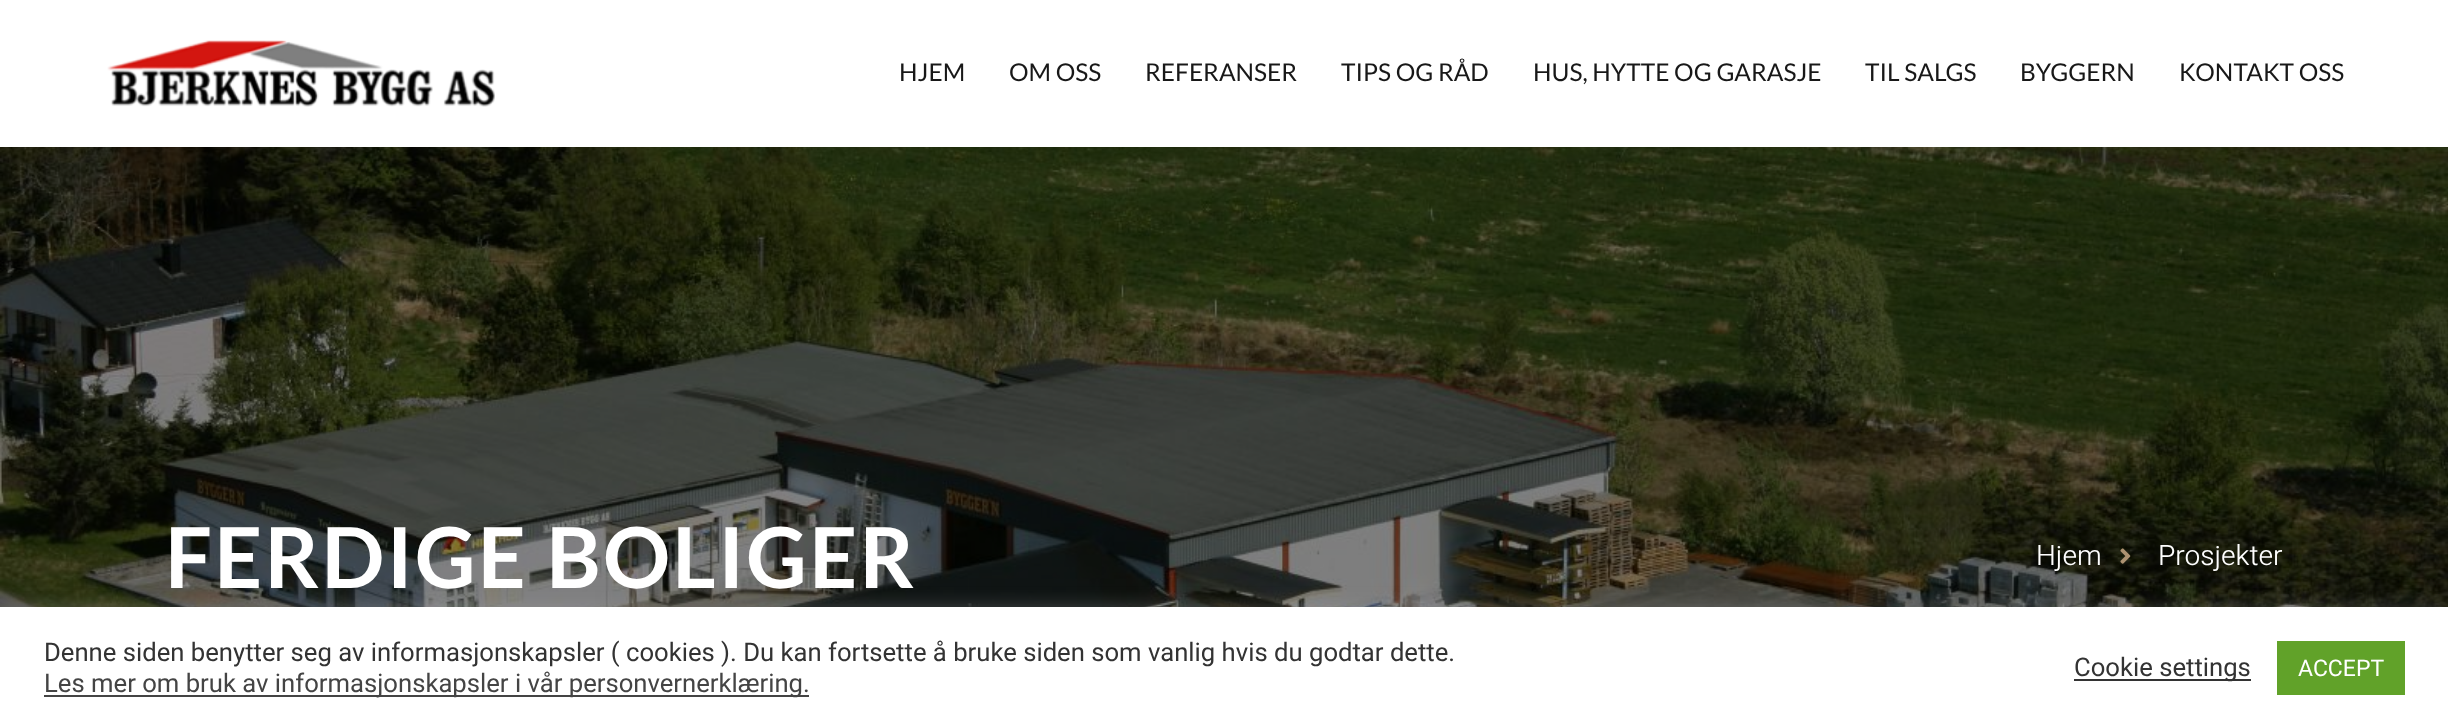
async function draw(canvas) {
  canvas.width = 2448;
  canvas.height = 727;
  const ctx = canvas.getContext('2d');
  ctx.miterLimit = 4;
  ctx.fontKerning = 'normal';
  function label(s, x, y, font, color) {
    ctx.font = font;
    ctx.fillStyle = color;
    ctx.fillText(s, x, y);
  }
  function rect(x, y, w, h, color) {
    ctx.fillStyle = color;
    ctx.fillRect(x, y, w, h);
  }
  async function image(src, x, y, w, h) {
    const img = new Image();
    img.src = src;
    await img.decode();
    ctx.drawImage(img, x, y, w, h);
  }

  rect(0, 0, 2448, 727, '#fff');
  await image('assets/img1.png', 107, 40, 388, 67);
  label('HJEM', 899, 81, '24.5px Lato', '#181818');
  label('OM OSS', 1009, 81, '24.5px Lato', '#181818');
  label('REFERANSER', 1145, 81, '24.5px Lato', '#181818');
  label('TIPS OG RÅD', 1341, 81, '24.5px Lato', '#181818');
  label('HUS, HYTTE OG GARASJE', 1533, 81, '24.5px Lato', '#181818');
  label('TIL SALGS', 1865, 81, '24.5px Lato', '#181818');
  label('BYGGERN', 2020, 81, '24.5px Lato', '#181818');
  label('KONTAKT OSS', 2179, 81, '24.5px Lato', '#181818');
  await image('assets/img2.png', 0, 147, 2448, 460);
  ctx.letterSpacing = '2.1px';
  label('FERDIGE BOLIGER', 165, 588, 'bold 84px Lato', '#fff');
  ctx.letterSpacing = '0px';
  label('Hjem', 2036, 565, '300 28px Heebo', '#fff');
  await image('assets/img3.png', 2120, 548, 11, 16);
  label('Prosjekter', 2158, 565, '300 28px Heebo', '#fff');
  ctx.fillStyle = '#acabab4d';
  ctx.filter = 'blur(9px)';
  ctx.beginPath();
  ctx.rect(0, 606, 2448, 120);
  ctx.fill();
  ctx.filter = 'none';
  rect(0, 607, 2448, 120, '#fff');
  label('Denne siden benytter seg av informasjonskapsler ( cookies ). Du kan fortsette å bruke siden som vanlig hvis du godtar dette.', 44, 661, '25.67px Roboto', '#333');
  rect(44, 695, 765, 2, '#444');
  label('Les mer om bruk av informasjonskapsler i vår personvernerklæring.', 44, 692, '25.67px Roboto', '#444');
  rect(2074, 679, 177, 2, '#333');
  label('Cookie settings', 2074, 676, '25.67px Roboto', '#333');
  rect(2277, 641, 128, 54, '#61a229');
  label('ACCEPT', 2298, 676, '23px Roboto', '#fff');
}

draw(document.querySelector('canvas'));
